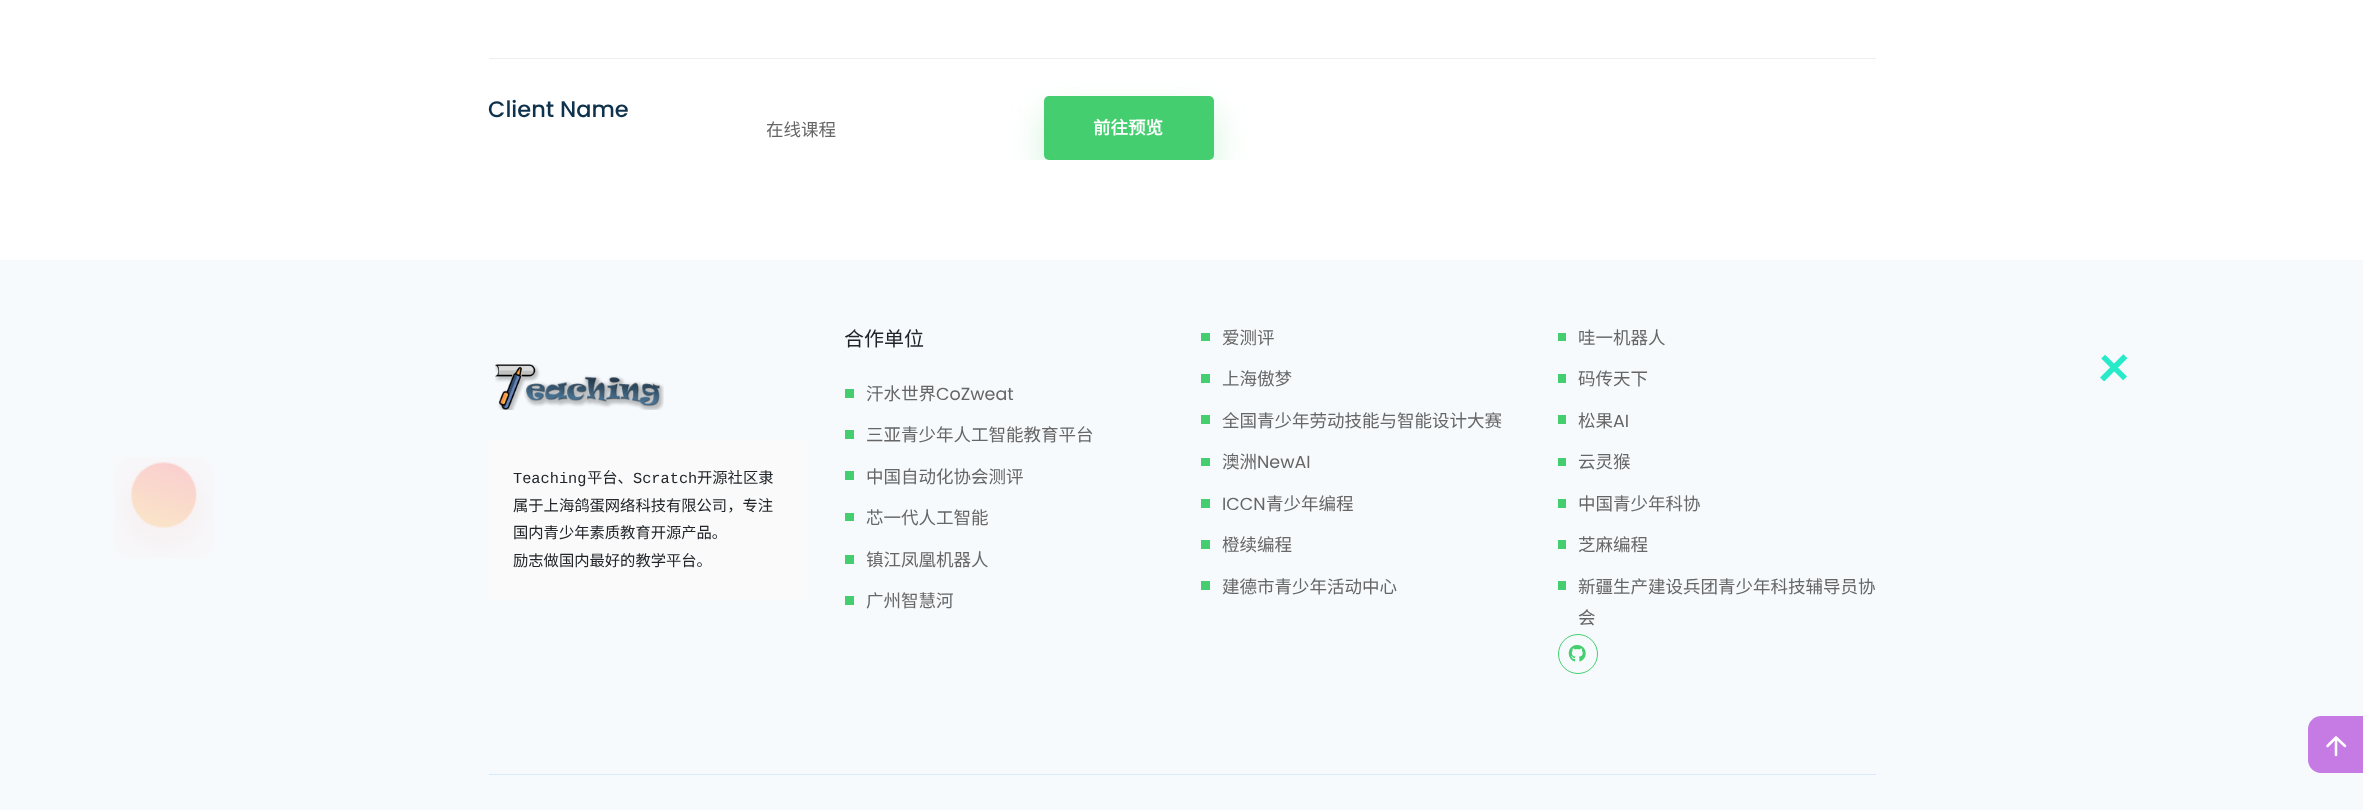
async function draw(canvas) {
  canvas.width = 2363;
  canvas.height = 810;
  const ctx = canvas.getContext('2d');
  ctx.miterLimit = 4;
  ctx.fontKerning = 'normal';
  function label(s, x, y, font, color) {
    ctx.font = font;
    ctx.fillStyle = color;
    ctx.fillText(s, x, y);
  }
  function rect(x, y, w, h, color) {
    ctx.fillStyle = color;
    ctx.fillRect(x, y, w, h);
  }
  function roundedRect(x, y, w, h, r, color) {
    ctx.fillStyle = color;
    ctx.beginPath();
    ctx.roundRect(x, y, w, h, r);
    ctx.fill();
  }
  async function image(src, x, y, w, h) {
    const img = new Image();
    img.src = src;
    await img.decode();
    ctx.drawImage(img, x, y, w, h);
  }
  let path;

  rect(0, 0, 2363, 810, '#fff');
  rect(489, 58, 1387, 1, '#eee');
  label('Client Name', 488, 117, '500 22.5px Poppins', '#0e314c');
  label('在线课程', 766, 136, '17.5px Noto Sans CJK SC', '#666');
  ctx.save();
  ctx.beginPath();
  ctx.rect(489, 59, 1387, 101);
  ctx.clip();
  ctx.fillStyle = '#44ce6f40';
  ctx.filter = 'blur(17px)';
  ctx.beginPath();
  ctx.roundRect(1044, 113, 170, 63, 5);
  ctx.fill();
  ctx.filter = 'none';
  ctx.restore();
  roundedRect(1044, 96, 170, 64, 5, '#44ce6f');
  label('前往预览', 1093, 134, 'bold 17.5px Noto Sans CJK SC', '#fff');
  rect(0, 260, 2363, 550, '#f7fafd');
  await image('assets/img1.png', 495, 364, 169, 46);
  rect(489, 441, 319, 160, '#fafafa');
  label('Teaching', 513, 483, '15.3px Liberation Mono', '#212529');
  label('平台、', 587, 483, '15.3px Noto Sans CJK SC', '#212529');
  label('Scratch', 633, 483, '15.3px Liberation Mono', '#212529');
  label('开源社区隶', 697, 483, '15.3px Noto Sans CJK SC', '#212529');
  label('属于上海鸽蛋网络科技有限公司，专注', 513, 511, '15.3px Noto Sans CJK SC', '#212529');
  label('国内青少年素质教育开源产品。', 513, 538, '15.3px Noto Sans CJK SC', '#212529');
  label('励志做国内最好的教学平台。', 513, 566, '15.3px Noto Sans CJK SC', '#212529');
  label('合作单位', 844, 346, '20px Noto Sans CJK SC', '#212529');
  rect(845, 389, 9, 9, '#44ce6f');
  label('汗水世界', 866, 400, '17.5px Noto Sans CJK SC', '#666');
  label('CoZweat', 936, 400, '17.5px Poppins', '#666');
  rect(845, 430, 9, 9, '#44ce6f');
  label('三亚青少年人工智能教育平台', 866, 441, '17.5px Noto Sans CJK SC', '#666');
  rect(845, 471, 9, 9, '#44ce6f');
  label('中国自动化协会测评', 866, 483, '17.5px Noto Sans CJK SC', '#666');
  rect(845, 513, 9, 8, '#44ce6f');
  label('芯一代人工智能', 866, 524, '17.5px Noto Sans CJK SC', '#666');
  rect(845, 555, 9, 9, '#44ce6f');
  label('镇江凤凰机器人', 866, 566, '17.5px Noto Sans CJK SC', '#666');
  rect(845, 596, 9, 9, '#44ce6f');
  label('广州智慧河', 866, 607, '17.5px Noto Sans CJK SC', '#666');
  rect(1201, 333, 9, 8, '#44ce6f');
  label('爱测评', 1222, 344, '17.5px Noto Sans CJK SC', '#666');
  rect(1201, 374, 9, 9, '#44ce6f');
  label('上海傲梦', 1222, 385, '17.5px Noto Sans CJK SC', '#666');
  rect(1201, 415, 9, 9, '#44ce6f');
  label('全国青少年劳动技能与智能设计大赛', 1222, 427, '17.5px Noto Sans CJK SC', '#666');
  rect(1201, 458, 9, 8, '#44ce6f');
  label('澳洲', 1222, 468, '17.5px Noto Sans CJK SC', '#666');
  label('NewAI', 1257, 468, '17.5px Poppins', '#666');
  rect(1201, 499, 9, 9, '#44ce6f');
  label('ICCN', 1222, 510, '17.5px Poppins', '#666');
  label('青少年编程', 1266, 510, '17.5px Noto Sans CJK SC', '#666');
  rect(1201, 540, 9, 9, '#44ce6f');
  label('橙续编程', 1222, 551, '17.5px Noto Sans CJK SC', '#666');
  rect(1201, 581, 9, 9, '#44ce6f');
  label('建德市青少年活动中心', 1222, 593, '17.5px Noto Sans CJK SC', '#666');
  rect(1558, 333, 8, 8, '#44ce6f');
  label('哇一机器人', 1578, 344, '17.5px Noto Sans CJK SC', '#666');
  rect(1558, 374, 8, 9, '#44ce6f');
  label('码传天下', 1578, 385, '17.5px Noto Sans CJK SC', '#666');
  rect(1558, 415, 8, 9, '#44ce6f');
  label('松果', 1578, 427, '17.5px Noto Sans CJK SC', '#666');
  label('AI', 1613, 427, '17.5px Poppins', '#666');
  rect(1558, 458, 8, 8, '#44ce6f');
  label('云灵猴', 1578, 468, '17.5px Noto Sans CJK SC', '#666');
  rect(1558, 499, 8, 9, '#44ce6f');
  label('中国青少年科协', 1578, 510, '17.5px Noto Sans CJK SC', '#666');
  rect(1558, 540, 8, 9, '#44ce6f');
  label('芝麻编程', 1578, 551, '17.5px Noto Sans CJK SC', '#666');
  rect(1558, 581, 8, 9, '#44ce6f');
  label('新疆生产建设兵团青少年科技辅导员协', 1578, 593, '17.5px Noto Sans CJK SC', '#666');
  label('会', 1578, 624, '17.5px Noto Sans CJK SC', '#666');
  ctx.beginPath();
  ctx.arc(1578, 654, 19.5, 0, 2 * Math.PI);
  ctx.strokeStyle = '#44ce6f';
  ctx.stroke();
  await image('assets/img2.png', 1568, 645, 18, 17);
  rect(489, 774, 1387, 1, '#d8ebfd');
  await image('assets/img3.png', 2100, 354, 28, 27);
  await image('assets/img4.png', 114, 457, 100, 101);
  ctx.fillStyle = '#c67ae3';
  path = new Path2D('M2321 716H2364V773H2321C2314 773 2308 767 2308 760V729C2308 722 2314 716 2321 716Z');
  ctx.fill(path);
  path = new Path2D('M2336 755V737.5M2327.5 746L2336 737.5L2345 746');
  ctx.strokeStyle = '#fff';
  ctx.lineWidth = 2.5;
  ctx.lineCap = 'round';
  ctx.lineJoin = 'round';
  ctx.stroke(path);
}

draw(document.querySelector('canvas'));
